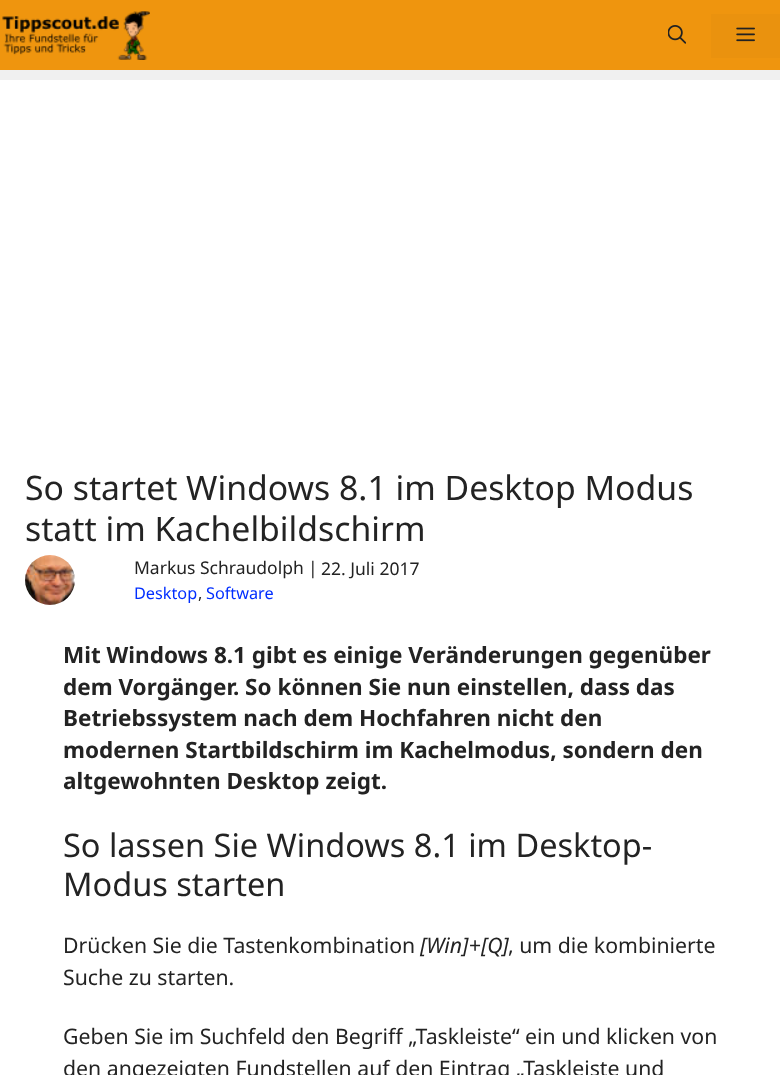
async function draw(canvas) {
  canvas.width = 780;
  canvas.height = 1075;
  const ctx = canvas.getContext('2d');
  ctx.miterLimit = 4;
  ctx.fontKerning = 'normal';
  function label(s, x, y, font, color) {
    ctx.font = font;
    ctx.fillStyle = color;
    ctx.fillText(s, x, y);
  }
  function rect(x, y, w, h, color) {
    ctx.fillStyle = color;
    ctx.fillRect(x, y, w, h);
  }
  async function image(src, x, y, w, h) {
    const img = new Image();
    img.src = src;
    await img.decode();
    ctx.drawImage(img, x, y, w, h);
  }

  rect(0, 0, 780, 1075, '#f0f0f0');
  rect(0, 0, 780, 70, '#ef950e');
  await image('assets/img1.png', 2, 11, 148, 49);
  await image('assets/img2.png', 668, 25, 18, 19);
  rect(711, 14, 69, 44, '#ea920e');
  await image('assets/img3.png', 736, 27, 19, 15);
  rect(0, 80, 780, 995, '#fff');
  label('So startet Windows 8.1 im Desktop Modus', 25, 500, '33.75px Noto Sans', '#232323');
  label('statt im Kachelbildschirm', 25, 541, '33.75px Noto Sans', '#232323');
  await image('assets/img4.png', 25, 555, 50, 50);
  label('Markus Schraudolph', 134, 574, '17.5px Noto Sans', '#232323');
  label('|', 308, 574, '17.5px Noto Sans', '#232323');
  label('22. Juli 2017', 321, 575, '17.5px Noto Sans', '#232323');
  label('Desktop', 134, 599, '16.25px Noto Sans', '#002eff');
  label(',', 198, 599, '16.25px Noto Sans', '#232323');
  label('Software', 206, 599, '16.25px Noto Sans', '#002eff');
  label('Mit Windows 8.1 gibt es einige Veränderungen gegenüber', 63, 663, 'bold 22.5px Noto Sans', '#232323');
  label('dem Vorgänger. So können Sie nun einstellen, dass das', 63, 695, 'bold 22.5px Noto Sans', '#232323');
  label('Betriebssystem nach dem Hochfahren nicht den', 63, 726, 'bold 22.5px Noto Sans', '#232323');
  label('modernen Startbildschirm im Kachelmodus, sondern den', 63, 758, 'bold 22.5px Noto Sans', '#232323');
  label('altgewohnten Desktop zeigt.', 63, 789, 'bold 22.5px Noto Sans', '#232323');
  label('So lassen Sie Windows 8.1 im Desktop-', 63, 857, '32.5px Noto Sans', '#232323');
  label('Modus starten', 63, 896, '32.5px Noto Sans', '#232323');
  label('Drücken Sie die Tastenkombination', 63, 953, '21.25px Noto Sans', '#232323');
  label('[Win]', 420, 953, 'italic 21.25px Noto Sans', '#232323');
  label('+', 469, 953, '21.25px Noto Sans', '#232323');
  label('[Q]', 481, 953, 'italic 21.25px Noto Sans', '#232323');
  label(', um die kombinierte', 508, 953, '21.25px Noto Sans', '#232323');
  label('Suche zu starten.', 63, 985, '21.25px Noto Sans', '#232323');
  label('Geben Sie im Suchfeld den Begriff „Taskleiste“ ein und klicken von', 63, 1044, '21.25px Noto Sans', '#232323');
  label('den angezeigten Fundstellen auf den Eintrag „Taskleiste und', 63, 1076, '21.25px Noto Sans', '#232323');
}

draw(document.querySelector('canvas'));
